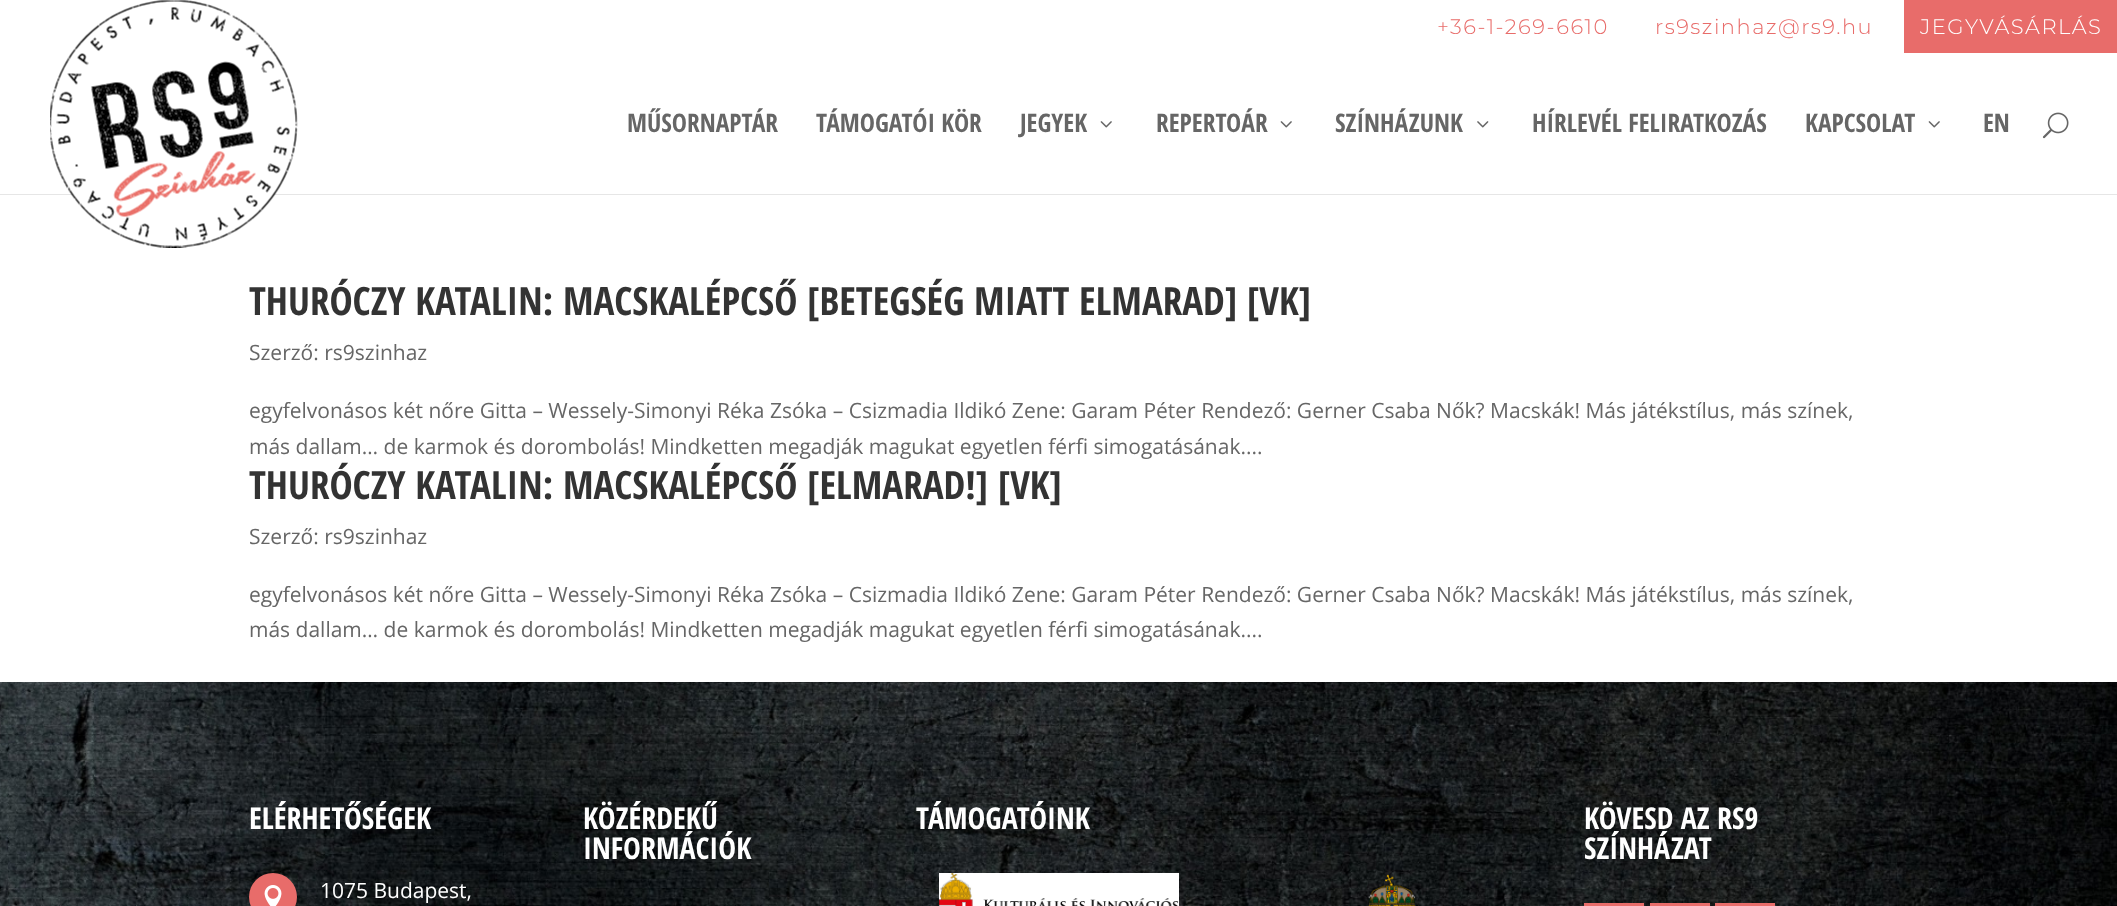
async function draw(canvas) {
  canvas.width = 2117;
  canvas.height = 906;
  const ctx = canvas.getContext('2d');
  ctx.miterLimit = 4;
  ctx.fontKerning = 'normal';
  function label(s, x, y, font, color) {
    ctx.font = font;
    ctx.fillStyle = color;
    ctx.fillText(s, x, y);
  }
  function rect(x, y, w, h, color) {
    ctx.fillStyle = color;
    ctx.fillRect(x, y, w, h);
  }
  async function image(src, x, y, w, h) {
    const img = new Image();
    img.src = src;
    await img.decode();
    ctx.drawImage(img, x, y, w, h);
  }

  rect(0, 0, 2117, 906, '#fff');
  ctx.letterSpacing = '1.5px';
  label('+36-1-269-6610', 1437, 34, '300 21px Montserrat', '#e86c6a');
  label('rs9szinhaz@rs9.hu', 1655, 34, '300 21px Montserrat', '#e86c6a');
  rect(1904, 0, 213, 53, '#e86c6a');
  label('JEGYVÁSÁRLÁS', 1920, 34, '300 21px Montserrat', '#fff');
  rect(0, 194, 2117, 1, '#e6e6e6');
  await image('assets/img1.png', 50, 0, 248, 248);
  ctx.letterSpacing = '0px';
  label('MŰSORNAPTÁR', 627, 132, 'bold 25.5px Open Sans Condensed', '#666');
  label('TÁMOGATÓI KÖR', 816, 132, 'bold 25.5px Open Sans Condensed', '#666');
  label('JEGYEK', 1020, 132, 'bold 25.5px Open Sans Condensed', '#666');
  await image('assets/img2.png', 1100, 121, 12, 7);
  label('REPERTOÁR', 1156, 132, 'bold 25.5px Open Sans Condensed', '#666');
  await image('assets/img2.png', 1280, 121, 12, 7);
  label('SZÍNHÁZUNK', 1335, 132, 'bold 25.5px Open Sans Condensed', '#666');
  await image('assets/img3.png', 1477, 121, 12, 7);
  label('HÍRLEVÉL FELIRATKOZÁS', 1532, 132, 'bold 25.5px Open Sans Condensed', '#666');
  label('KAPCSOLAT', 1805, 132, 'bold 25.5px Open Sans Condensed', '#666');
  await image('assets/img2.png', 1928, 121, 12, 7);
  label('EN', 1983, 132, 'bold 25.5px Open Sans Condensed', '#666');
  await image('assets/img4.png', 2042, 112, 27, 27);
  label('THURÓCZY KATALIN: MACSKALÉPCSŐ [BETEGSÉG MIATT ELMARAD] [VK]', 249, 315, 'bold 39px Open Sans Condensed', '#333');
  label('Szerző: rs9szinhaz', 249, 360, '21px Open Sans', '#666');
  label('egyfelvonásos két nőre Gitta – Wessely-Simonyi Réka Zsóka – Csizmadia Ildikó Zene: Garam Péter Rendező: Gerner Csaba Nők? Macskák! Más játékstílus, más színek,', 249, 418, '21px Open Sans', '#666');
  label('más dallam… de karmok és dorombolás! Mindketten megadják magukat egyetlen férfi simogatásának....', 249, 454, '21px Open Sans', '#666');
  label('THURÓCZY KATALIN: MACSKALÉPCSŐ [ELMARAD!] [VK]', 249, 499, 'bold 39px Open Sans Condensed', '#333');
  label('Szerző: rs9szinhaz', 249, 544, '21px Open Sans', '#666');
  label('egyfelvonásos két nőre Gitta – Wessely-Simonyi Réka Zsóka – Csizmadia Ildikó Zene: Garam Péter Rendező: Gerner Csaba Nők? Macskák! Más játékstílus, más színek,', 249, 602, '21px Open Sans', '#666');
  label('más dallam… de karmok és dorombolás! Mindketten megadják magukat egyetlen férfi simogatásának....', 249, 637, '21px Open Sans', '#666');
  await image('assets/img5.png', 0, 682, 2117, 224);
  label('ELÉRHETŐSÉGEK', 249, 829, 'bold 30px Open Sans Condensed', '#fff');
  ctx.fillStyle = '#e86c6a';
  ctx.beginPath();
  ctx.arc(273, 897, 24, 0, 2 * Math.PI);
  ctx.fill();
  await image('assets/img6.png', 264, 885, 18, 21);
  label('1075 Budapest,', 320, 898, '21px Open Sans', '#fff');
  label('KÖZÉRDEKŰ', 583, 829, 'bold 30px Open Sans Condensed', '#fff');
  label('INFORMÁCIÓK', 583, 859, 'bold 30px Open Sans Condensed', '#fff');
  label('TÁMOGATÓINK', 916, 829, 'bold 30px Open Sans Condensed', '#fff');
  await image('assets/img7.png', 939, 873, 240, 33);
  label('KÖVESD AZ RS9', 1584, 829, 'bold 30px Open Sans Condensed', '#fff');
  label('SZÍNHÁZAT', 1584, 859, 'bold 30px Open Sans Condensed', '#fff');
  rect(1584, 903, 60, 3, '#e86c6a');
  rect(1650, 903, 60, 3, '#e86c6a');
  rect(1715, 903, 60, 3, '#e86c6a');
  await image('assets/img8.png', 1368, 874, 76, 32);
}

draw(document.querySelector('canvas'));
